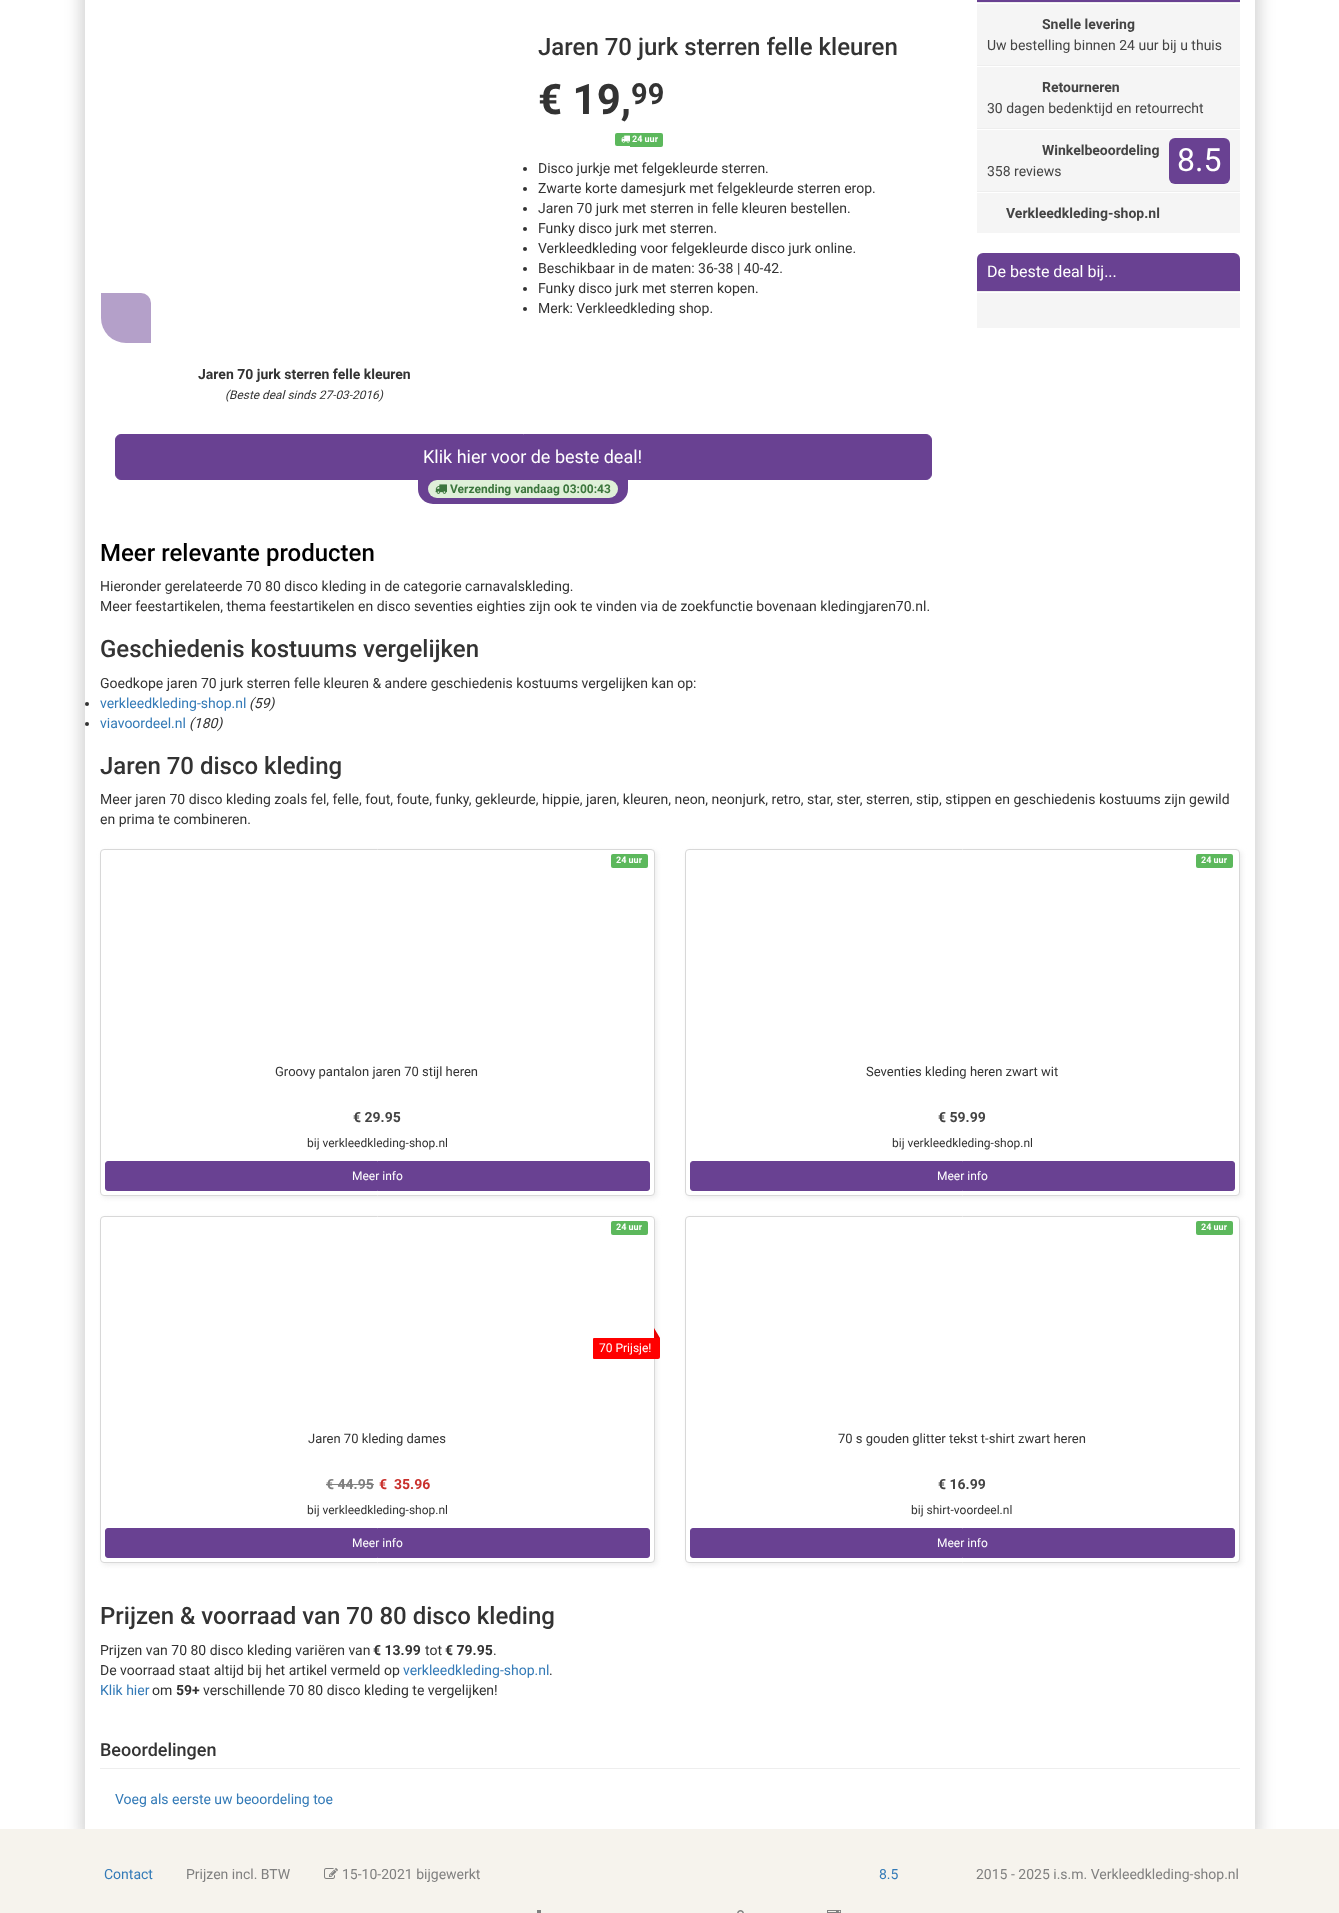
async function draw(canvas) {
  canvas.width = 1339;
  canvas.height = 1913;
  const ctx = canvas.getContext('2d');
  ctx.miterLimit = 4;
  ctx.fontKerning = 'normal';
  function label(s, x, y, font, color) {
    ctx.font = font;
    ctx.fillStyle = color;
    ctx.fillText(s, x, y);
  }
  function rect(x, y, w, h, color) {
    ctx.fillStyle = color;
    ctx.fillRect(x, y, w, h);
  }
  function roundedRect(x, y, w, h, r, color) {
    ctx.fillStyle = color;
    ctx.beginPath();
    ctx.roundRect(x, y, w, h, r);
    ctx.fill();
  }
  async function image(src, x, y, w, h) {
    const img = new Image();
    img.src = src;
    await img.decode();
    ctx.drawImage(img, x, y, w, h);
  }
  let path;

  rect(0, 0, 1339, 1913, '#fff');
  ctx.save();
  path = new Path2D('M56 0H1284V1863H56ZM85-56H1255V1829H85Z');
  ctx.clip(path, 'evenodd');
  ctx.fillStyle = '#32323233';
  ctx.filter = 'blur(7.5px)';
  ctx.beginPath();
  ctx.rect(80, -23, 1180, 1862);
  ctx.fill();
  ctx.filter = 'none';
  ctx.restore();
  label('Jaren 70 jurk sterren felle kleuren', 538, 55, '500 24px Roboto', '#333');
  label('€ 19,', 538, 114, 'bold 42px Roboto', '#333');
  label('99', 631, 104, 'bold 29px Roboto', '#333');
  ctx.fillStyle = '#5cb85c';
  ctx.beginPath();
  ctx.roundRect(615, 133, 15, 13, [2, 0, 0, 2]);
  ctx.fill();
  ctx.beginPath();
  ctx.roundRect(630, 133, 33, 14, [0, 2, 2, 0]);
  ctx.fill();
  await image('assets/img1.png', 621, 135, 9, 8);
  label('24 uur', 632, 142, 'bold 9px Roboto', '#fff');
  ctx.fillStyle = '#333';
  ctx.beginPath();
  ctx.arc(525, 169, 2, 0, 2 * Math.PI);
  ctx.fill();
  label('Disco jurkje met felgekleurde sterren.', 538, 173, '14px Roboto', '#333');
  ctx.beginPath();
  ctx.arc(525, 189, 2, 0, 2 * Math.PI);
  ctx.fill();
  label('Zwarte korte damesjurk met felgekleurde sterren erop.', 538, 193, '14px Roboto', '#333');
  ctx.beginPath();
  ctx.arc(525, 209, 2, 0, 2 * Math.PI);
  ctx.fill();
  label('Jaren 70 jurk met sterren in felle kleuren bestellen.', 538, 213, '14px Roboto', '#333');
  ctx.beginPath();
  ctx.arc(525, 229, 2, 0, 2 * Math.PI);
  ctx.fill();
  label('Funky disco jurk met sterren.', 538, 233, '14px Roboto', '#333');
  ctx.beginPath();
  ctx.arc(525, 249, 2, 0, 2 * Math.PI);
  ctx.fill();
  label('Verkleedkleding voor felgekleurde disco jurk online.', 538, 253, '14px Roboto', '#333');
  ctx.beginPath();
  ctx.arc(525, 269, 2, 0, 2 * Math.PI);
  ctx.fill();
  label('Beschikbaar in de maten: 36-38 | 40-42.', 538, 273, '14px Roboto', '#333');
  ctx.beginPath();
  ctx.arc(525, 289, 2, 0, 2 * Math.PI);
  ctx.fill();
  label('Funky disco jurk met sterren kopen.', 538, 293, '14px Roboto', '#333');
  ctx.beginPath();
  ctx.arc(525, 309, 2, 0, 2 * Math.PI);
  ctx.fill();
  label('Merk: Verkleedkleding shop.', 538, 313, '14px Roboto', '#333');
  ctx.fillStyle = '#b4a0c9';
  ctx.beginPath();
  ctx.roundRect(101, 293, 50, 50, [0, 10, 0, 25]);
  ctx.fill();
  label('Jaren 70 jurk sterren felle kleuren', 198, 379, 'bold 14px Roboto', '#333');
  label('(Beste deal sinds 27-03-2016)', 225, 399, 'italic 11.9px Roboto', '#333');
  ctx.fillStyle = '#694192';
  ctx.beginPath();
  ctx.roundRect(418, 476, 210, 28, [0, 0, 15, 15]);
  ctx.fill();
  ctx.beginPath();
  ctx.roundRect(115.5, 434.5, 816, 45, 5.5);
  ctx.fill();
  ctx.strokeStyle = '#694192';
  ctx.stroke();
  label('Klik hier voor de beste deal!', 423, 463, '18px Roboto', '#fff');
  roundedRect(428, 480, 190, 18, 9, '#dff0d8');
  await image('assets/img2.png', 435, 484, 12, 10);
  label('Verzending vandaag 03:00:43', 450, 493, 'bold 12px Roboto', '#3c763d');
  rect(977, 0, 263, 2, '#694192');
  rect(977, 2, 263, 1, '#eee');
  rect(977, 4, 263, 61, '#f5f5f5');
  rect(977, 65, 263, 1, '#eee');
  label('Snelle levering', 1042, 29, 'bold 14px Roboto', '#444');
  label('Uw bestelling binnen 24 uur bij u thuis', 987, 50, '14px Roboto', '#444');
  rect(977, 67, 263, 61, '#f5f5f5');
  rect(977, 128, 263, 1, '#eee');
  label('Retourneren', 1042, 92, 'bold 14px Roboto', '#444');
  label('30 dagen bedenktijd en retourrecht', 987, 113, '14px Roboto', '#444');
  rect(977, 130, 263, 61, '#f5f5f5');
  rect(977, 191, 263, 1, '#eee');
  label('358 reviews', 987, 176, '14px Roboto', '#444');
  label('Winkelbeoordeling', 1042, 155, 'bold 14px Roboto', '#444');
  roundedRect(1169, 138, 61, 46, 6, '#694192');
  label('8.5', 1177, 171, '32px Roboto', '#fff');
  rect(977, 193, 263, 40, '#f5f5f5');
  label('Verkleedkleding-shop.nl', 1006, 218, 'bold 14px Roboto', '#444');
  ctx.fillStyle = '#694192';
  ctx.beginPath();
  ctx.roundRect(977, 253, 263, 39, [6, 6, 0, 0]);
  ctx.fill();
  rect(977, 291, 263, 1, '#eee');
  label('De beste deal bij...', 987, 277, '16px Roboto', '#fff');
  rect(977, 293, 263, 35, '#f5f5f5');
  label('Meer relevante producten', 100, 561, '500 24px Roboto', '#000');
  label('Hieronder gerelateerde 70 80 disco kleding in de categorie carnavalskleding.', 100, 591, '14px Roboto', '#333');
  label('Meer feestartikelen, thema feestartikelen en disco seventies eighties zijn ook te vinden via de zoekfunctie bovenaan kledingjaren70.nl.', 100, 611, '14px Roboto', '#333');
  label('Geschiedenis kostuums vergelijken', 100, 657, '500 24px Roboto', '#333');
  label('Goedkope jaren 70 jurk sterren felle kleuren & andere geschiedenis kostuums vergelijken kan op:', 100, 688, '14px Roboto', '#333');
  ctx.beginPath();
  ctx.arc(87, 704, 2, 0, 2 * Math.PI);
  ctx.fill();
  label('verkleedkleding-shop.nl', 100, 708, '14px Roboto', '#337ab7');
  label('(59)', 249, 708, 'italic 14px Roboto', '#333');
  ctx.beginPath();
  ctx.arc(87, 724, 2, 0, 2 * Math.PI);
  ctx.fill();
  label('viavoordeel.nl', 100, 728, '14px Roboto', '#337ab7');
  label('(180)', 189, 728, 'italic 14px Roboto', '#333');
  label('Jaren 70 disco kleding', 100, 774, '500 24px Roboto', '#333');
  label('Meer jaren 70 disco kleding zoals fel, felle, fout, foute, funky, gekleurde, hippie, jaren, kleuren, neon, neonjurk, retro, star, ster, sterren, stip, stippen en geschiedenis kostuums zijn gewild', 100, 804, '14px Roboto', '#333');
  label('en prima te combineren.', 100, 824, '14px Roboto', '#333');
  ctx.fillStyle = '#eee';
  ctx.filter = 'blur(2.5px)';
  ctx.beginPath();
  ctx.roundRect(102, 851, 555, 347, 4);
  ctx.fill();
  ctx.filter = 'none';
  ctx.fillStyle = '#fff';
  ctx.beginPath();
  ctx.roundRect(100.5, 849.5, 554, 346, 3.5);
  ctx.fill();
  ctx.strokeStyle = '#d8d8d8';
  ctx.stroke();
  roundedRect(611, 854, 37, 14, 2, '#5cb85c');
  label('24 uur', 616, 863, 'bold 9px Roboto', '#fff');
  label('Groovy pantalon jaren 70 stijl heren', 275, 1076, '13px Roboto', '#333');
  label('€ 29.95', 353, 1122, 'bold 14px Roboto', '#444');
  label('bij verkleedkleding-shop.nl', 307, 1147, '12px Roboto', '#333');
  ctx.fillStyle = '#694192';
  ctx.beginPath();
  ctx.roundRect(105.5, 1161.5, 544, 29, 2.5);
  ctx.fill();
  ctx.strokeStyle = '#694192';
  ctx.stroke();
  label('Meer info', 352, 1180, '12px Roboto', '#fff');
  ctx.fillStyle = '#eee';
  ctx.filter = 'blur(2.5px)';
  ctx.beginPath();
  ctx.roundRect(687, 851, 555, 347, 4);
  ctx.fill();
  ctx.filter = 'none';
  ctx.fillStyle = '#fff';
  ctx.beginPath();
  ctx.roundRect(685.5, 849.5, 554, 346, 3.5);
  ctx.fill();
  ctx.strokeStyle = '#d8d8d8';
  ctx.stroke();
  roundedRect(1196, 854, 37, 14, 2, '#5cb85c');
  label('24 uur', 1201, 863, 'bold 9px Roboto', '#fff');
  label('Seventies kleding heren zwart wit', 866, 1076, '13px Roboto', '#333');
  label('€ 59.99', 938, 1122, 'bold 14px Roboto', '#444');
  label('bij verkleedkleding-shop.nl', 892, 1147, '12px Roboto', '#333');
  ctx.fillStyle = '#694192';
  ctx.beginPath();
  ctx.roundRect(690.5, 1161.5, 544, 29, 2.5);
  ctx.fill();
  ctx.strokeStyle = '#694192';
  ctx.stroke();
  label('Meer info', 937, 1180, '12px Roboto', '#fff');
  ctx.fillStyle = '#eee';
  ctx.filter = 'blur(2.5px)';
  ctx.beginPath();
  ctx.roundRect(102, 1218, 555, 347, 4);
  ctx.fill();
  ctx.filter = 'none';
  ctx.fillStyle = '#fff';
  ctx.beginPath();
  ctx.roundRect(100.5, 1216.5, 554, 346, 3.5);
  ctx.fill();
  ctx.strokeStyle = '#d8d8d8';
  ctx.stroke();
  roundedRect(611, 1221, 37, 14, 2, '#5cb85c');
  label('24 uur', 616, 1230, 'bold 9px Roboto', '#fff');
  ctx.fillStyle = '#e80000';
  path = new Path2D('M660 1338H654V1328Z');
  ctx.fill(path);
  ctx.fillStyle = '#f00';
  ctx.beginPath();
  ctx.roundRect(593, 1338, 67, 21, [1, 0, 2, 1]);
  ctx.fill();
  label('70 Prijsje!', 599, 1352, '12px Roboto', '#fff');
  label('Jaren 70 kleding dames', 308, 1443, '13px Roboto', '#333');
  label('€ 44.95', 326, 1489, 'bold 14px Roboto', '#808080');
  rect(326, 1484, 48, 1, '#808080');
  label('€  35.96', 379, 1489, 'bold 14px Roboto', '#c9302c');
  label('bij verkleedkleding-shop.nl', 307, 1514, '12px Roboto', '#333');
  ctx.fillStyle = '#694192';
  ctx.beginPath();
  ctx.roundRect(105.5, 1528.5, 544, 29, 2.5);
  ctx.fill();
  ctx.strokeStyle = '#694192';
  ctx.stroke();
  label('Meer info', 352, 1547, '12px Roboto', '#fff');
  ctx.fillStyle = '#eee';
  ctx.filter = 'blur(2.5px)';
  ctx.beginPath();
  ctx.roundRect(687, 1218, 555, 347, 4);
  ctx.fill();
  ctx.filter = 'none';
  ctx.fillStyle = '#fff';
  ctx.beginPath();
  ctx.roundRect(685.5, 1216.5, 554, 346, 3.5);
  ctx.fill();
  ctx.strokeStyle = '#d8d8d8';
  ctx.stroke();
  roundedRect(1196, 1221, 37, 14, 2, '#5cb85c');
  label('24 uur', 1201, 1230, 'bold 9px Roboto', '#fff');
  label('70 s gouden glitter tekst t-shirt zwart heren', 838, 1443, '13px Roboto', '#333');
  label('€ 16.99', 938, 1489, 'bold 14px Roboto', '#444');
  label('bij shirt-voordeel.nl', 911, 1514, '12px Roboto', '#333');
  ctx.fillStyle = '#694192';
  ctx.beginPath();
  ctx.roundRect(690.5, 1528.5, 544, 29, 2.5);
  ctx.fill();
  ctx.strokeStyle = '#694192';
  ctx.stroke();
  label('Meer info', 937, 1547, '12px Roboto', '#fff');
  label('Prijzen & voorraad van 70 80 disco kleding', 100, 1624, '500 24px Roboto', '#333');
  label('Prijzen van 70 80 disco kleding variëren van', 100, 1655, '14px Roboto', '#333');
  label('€ 13.99', 373, 1655, 'bold 14px Roboto', '#333');
  label('tot', 425, 1655, '14px Roboto', '#333');
  label('€ 79.95', 445, 1655, 'bold 14px Roboto', '#333');
  label('.', 493, 1655, '14px Roboto', '#333');
  label('De voorraad staat altijd bij het artikel vermeld op', 100, 1675, '14px Roboto', '#333');
  label('verkleedkleding-shop.nl', 403, 1675, '14px Roboto', '#337ab7');
  label('.', 549, 1675, '14px Roboto', '#333');
  label('Klik hier', 100, 1695, '14px Roboto', '#337ab7');
  label('om', 152, 1695, '14px Roboto', '#333');
  label('59+', 176, 1695, 'bold 14px Roboto', '#333');
  label('verschillende 70 80 disco kleding te vergelijken!', 203, 1695, '14px Roboto', '#333');
  rect(100, 1768, 1140, 1, '#eee');
  label('Beoordelingen', 100, 1756, '500 18px Roboto', '#333');
  label('Voeg als eerste uw beoordeling toe', 115, 1804, '14px Roboto', '#337ab7');
  rect(0, 1829, 1339, 84, '#f6f3ed');
  label('Contact', 104, 1879, '14px Roboto', '#337ab7');
  label('Prijzen incl. BTW', 186, 1879, '14px Roboto', '#808080');
  await image('assets/img3.png', 324, 1868, 14, 11);
  label('15-10-2021 bijgewerkt', 342, 1879, '14px Roboto', '#808080');
  label('8.5', 879, 1879, '14px Roboto', '#337ab7');
  label('2015 - 2025 i.s.m. Verkleedkleding-shop.nl', 976, 1879, '14px Roboto', '#808080');
  rect(537, 1910, 4, 3, '#808080');
  await image('assets/img4.png', 737, 1910, 7, 3);
  await image('assets/img5.png', 827, 1910, 14, 3);
}

draw(document.querySelector('canvas'));
